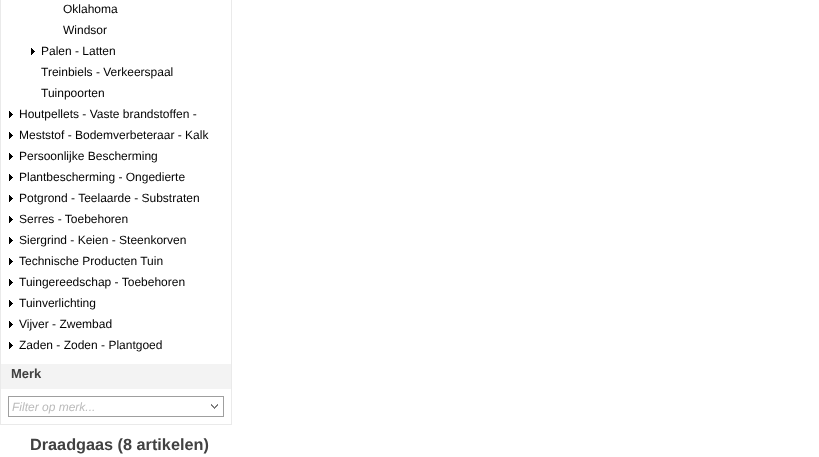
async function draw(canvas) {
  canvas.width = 819;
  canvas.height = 457;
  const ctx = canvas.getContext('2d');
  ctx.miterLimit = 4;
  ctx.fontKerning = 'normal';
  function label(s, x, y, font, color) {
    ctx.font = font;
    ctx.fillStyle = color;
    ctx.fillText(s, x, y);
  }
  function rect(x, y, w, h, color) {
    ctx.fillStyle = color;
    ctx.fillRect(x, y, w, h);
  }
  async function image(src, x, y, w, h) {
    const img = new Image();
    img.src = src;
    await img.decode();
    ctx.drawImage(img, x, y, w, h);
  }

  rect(0, 0, 819, 457, '#fff');
  ctx.strokeStyle = '#eaeaea';
  ctx.strokeRect(0.5, -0.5, 231, 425);
  label('Oklahoma', 63, 13, '12px Liberation Sans', '#000');
  label('Windsor', 63, 34, '12px Liberation Sans', '#000');
  await image('assets/img1.png', 31, 48, 4, 7);
  label('Palen - Latten', 41, 55, '12px Liberation Sans', '#000');
  label('Treinbiels - Verkeerspaal', 41, 76, '12px Liberation Sans', '#000');
  label('Tuinpoorten', 41, 97, '12px Liberation Sans', '#000');
  await image('assets/img1.png', 9, 111, 4, 7);
  label('Houtpellets - Vaste brandstoffen -', 19, 118, '12px Liberation Sans', '#000');
  await image('assets/img1.png', 9, 132, 4, 7);
  label('Meststof - Bodemverbeteraar - Kalk', 19, 139, '12px Liberation Sans', '#000');
  await image('assets/img1.png', 9, 153, 4, 7);
  label('Persoonlijke Bescherming', 19, 160, '12px Liberation Sans', '#000');
  await image('assets/img1.png', 9, 174, 4, 7);
  label('Plantbescherming - Ongedierte', 19, 181, '12px Liberation Sans', '#000');
  await image('assets/img1.png', 9, 195, 4, 7);
  label('Potgrond - Teelaarde - Substraten', 19, 202, '12px Liberation Sans', '#000');
  await image('assets/img1.png', 9, 216, 4, 7);
  label('Serres - Toebehoren', 19, 223, '12px Liberation Sans', '#000');
  await image('assets/img1.png', 9, 237, 4, 7);
  label('Siergrind - Keien - Steenkorven', 19, 244, '12px Liberation Sans', '#000');
  await image('assets/img1.png', 9, 258, 4, 7);
  label('Technische Producten Tuin', 19, 265, '12px Liberation Sans', '#000');
  await image('assets/img1.png', 9, 279, 4, 7);
  label('Tuingereedschap - Toebehoren', 19, 286, '12px Liberation Sans', '#000');
  await image('assets/img1.png', 9, 300, 4, 7);
  label('Tuinverlichting', 19, 307, '12px Liberation Sans', '#000');
  await image('assets/img1.png', 9, 321, 4, 7);
  label('Vijver - Zwembad', 19, 328, '12px Liberation Sans', '#000');
  await image('assets/img1.png', 9, 342, 4, 7);
  label('Zaden - Zoden - Plantgoed', 19, 349, '12px Liberation Sans', '#000');
  rect(1, 364, 230, 25, '#f3f3f3');
  label('Merk', 11, 378, 'bold 13px Liberation Sans', '#414141');
  ctx.strokeStyle = '#9f9f9f';
  ctx.strokeRect(8.5, 396.5, 215, 20);
  label('Filter op merk...', 12, 411, 'italic 12px Liberation Sans', '#bbb');
  await image('assets/img2.png', 211, 404, 7, 5);
  label('Draadgaas (8 artikelen)', 30, 450, 'bold 16.25px Liberation Sans', '#414141');
}

draw(document.querySelector('canvas'));
